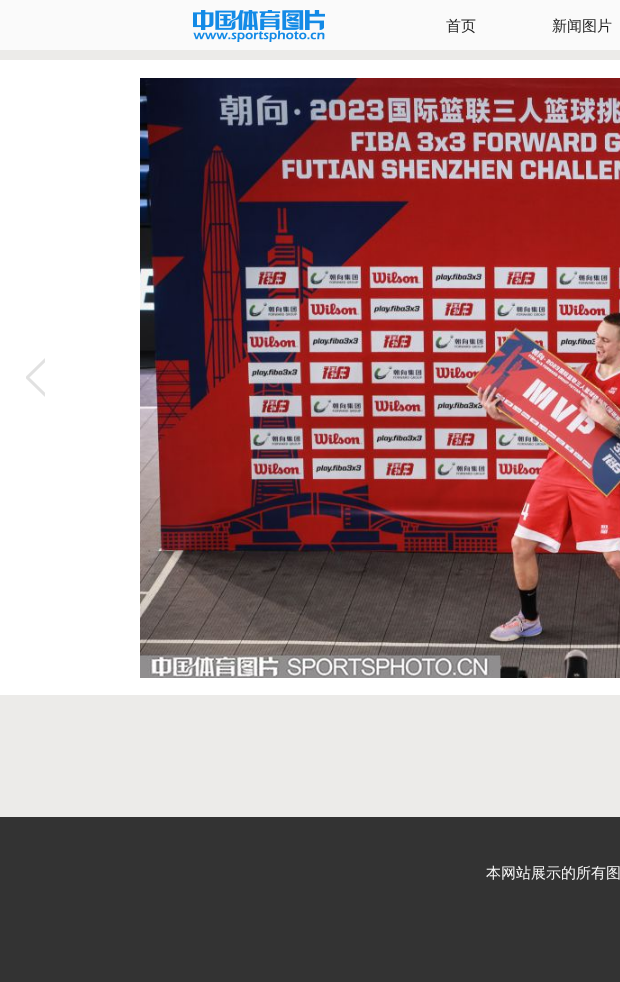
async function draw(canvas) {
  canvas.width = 620;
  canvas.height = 982;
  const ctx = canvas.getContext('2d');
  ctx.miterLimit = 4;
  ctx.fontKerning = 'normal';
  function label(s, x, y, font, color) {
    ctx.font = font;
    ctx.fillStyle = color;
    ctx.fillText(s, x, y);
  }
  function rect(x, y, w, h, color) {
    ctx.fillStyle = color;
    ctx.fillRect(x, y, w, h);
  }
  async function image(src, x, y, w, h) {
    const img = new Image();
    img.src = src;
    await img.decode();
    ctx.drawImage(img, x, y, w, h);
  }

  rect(0, 0, 620, 982, '#ecebe9');
  rect(0, 0, 620, 50, '#fafafa');
  await image('assets/img1.png', 193, 10, 132, 32);
  label('首页', 446, 31, '500 15px WenQuanYi Zen Hei', '#1f1f1f');
  label('新闻图片', 552, 31, '500 15px WenQuanYi Zen Hei', '#1f1f1f');
  rect(0, 60, 620, 635, '#fff');
  await image('assets/img2.png', 140, 78, 480, 600);
  await image('assets/img3.png', 26, 358, 19, 39);
  rect(0, 817, 620, 165, '#333');
  label('本网站展示的所有图', 486, 878, '500 15px WenQuanYi Zen Hei', '#f7f7f7');
}

draw(document.querySelector('canvas'));
